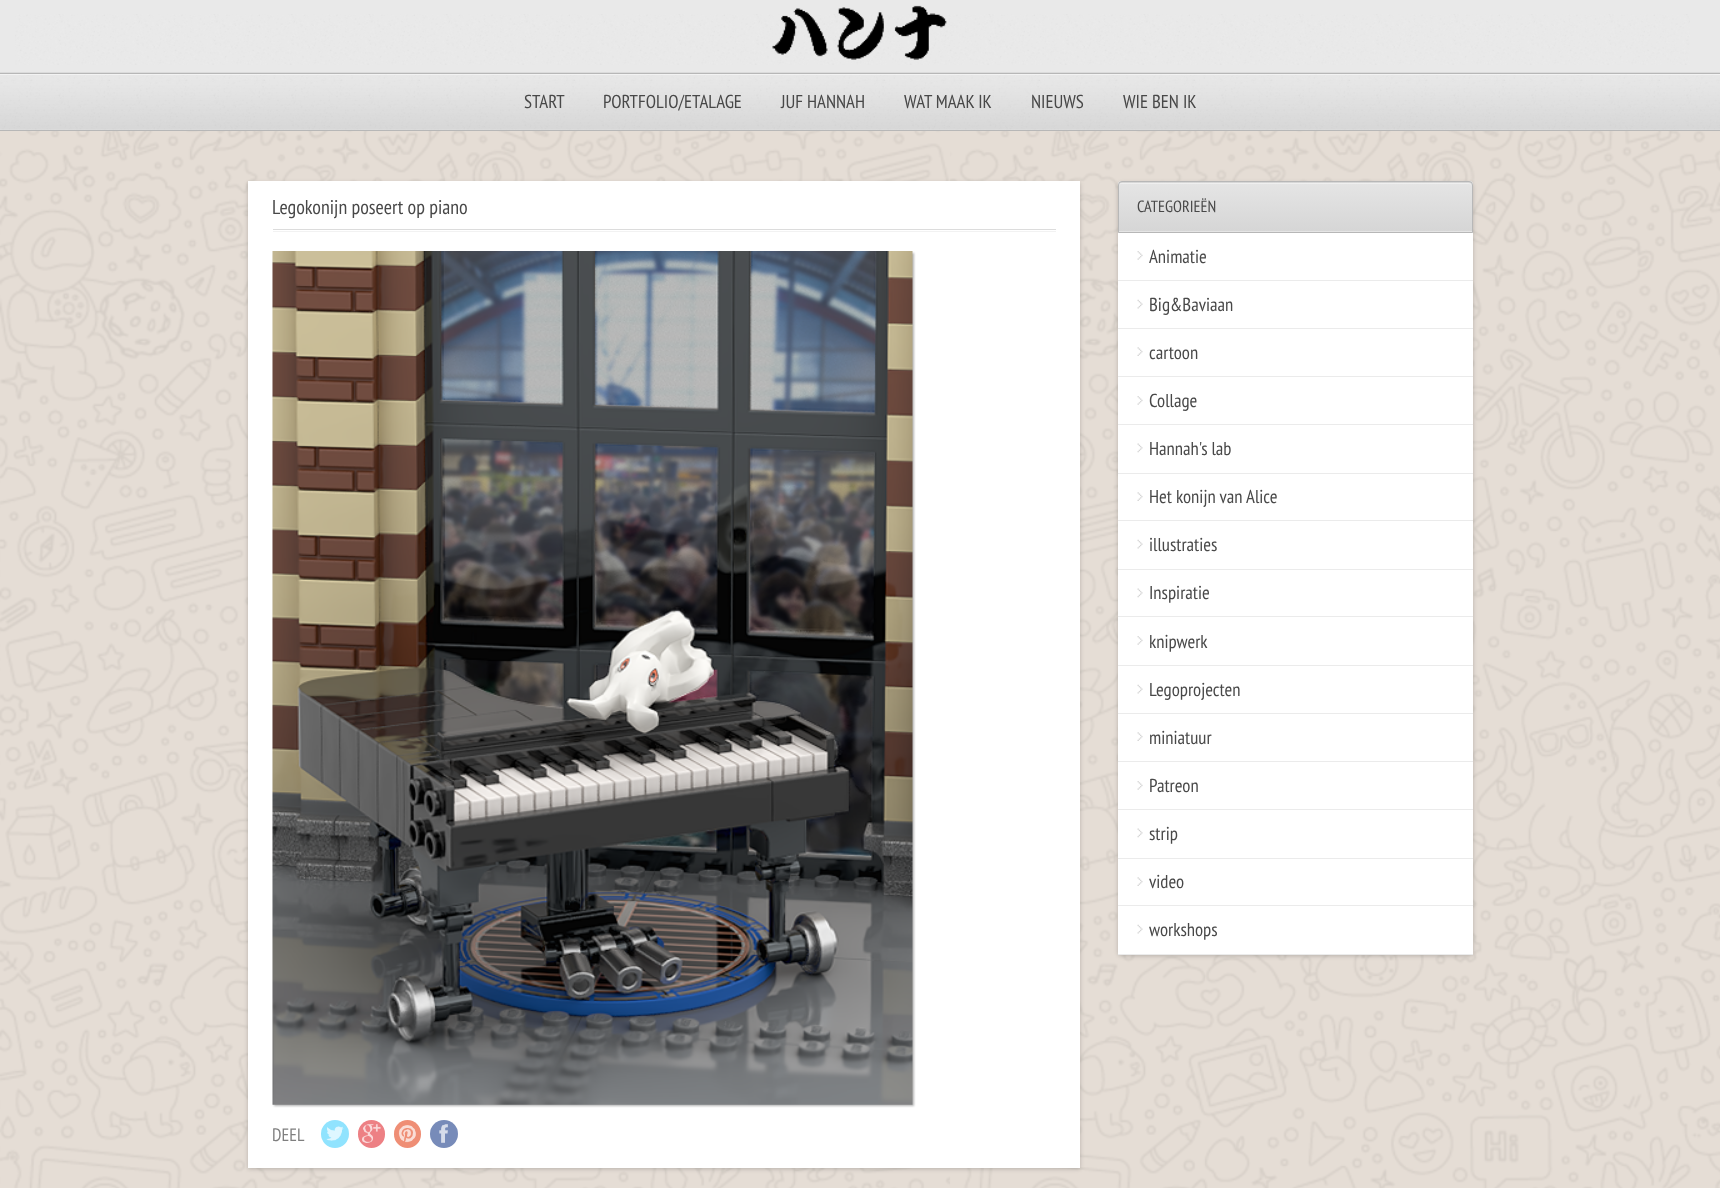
async function draw(canvas) {
  canvas.width = 1720;
  canvas.height = 1188;
  const ctx = canvas.getContext('2d');
  ctx.miterLimit = 4;
  ctx.fontKerning = 'normal';
  function label(s, x, y, font, color) {
    ctx.font = font;
    ctx.fillStyle = color;
    ctx.fillText(s, x, y);
  }
  function rect(x, y, w, h, color) {
    ctx.fillStyle = color;
    ctx.fillRect(x, y, w, h);
  }
  function roundedRect(x, y, w, h, r, color) {
    ctx.fillStyle = color;
    ctx.beginPath();
    ctx.roundRect(x, y, w, h, r);
    ctx.fill();
  }
  async function image(src, x, y, w, h) {
    const img = new Image();
    img.src = src;
    await img.decode();
    ctx.drawImage(img, x, y, w, h);
  }
  let gradient, path;

  rect(0, 0, 1720, 1188, '#fff');
  await image('assets/img1.png', 0, 131, 1720, 1057);
  rect(0, 0, 1720, 130, '#e9e9e9');
  await image('assets/img2.png', 15, 14, 1675, 51);
  rect(0, 130, 1720, 1, '#b7b7b7');
  await image('assets/img3.png', 772, 5, 175, 55);
  await image('assets/img4.png', 0, 72, 1720, 58);
  rect(0, 74, 1720, 1, '#ffffff66');
  rect(0, 73, 1720, 1, '#b7b7b7');
  label('START', 524, 108, '18.75px PT Sans Narrow', '#484848');
  label('PORTFOLIO/ETALAGE', 603, 108, '18.75px PT Sans Narrow', '#484848');
  label('JUF HANNAH', 781, 108, '18.75px PT Sans Narrow', '#484848');
  label('WAT MAAK IK', 904, 108, '18.75px PT Sans Narrow', '#484848');
  label('NIEUWS', 1031, 108, '18.75px PT Sans Narrow', '#484848');
  label('WIE BEN IK', 1123, 108, '18.75px PT Sans Narrow', '#484848');
  ctx.fillStyle = '#00000033';
  ctx.filter = 'blur(2px)';
  ctx.beginPath();
  ctx.rect(248, 183, 832, 986);
  ctx.fill();
  ctx.filter = 'none';
  rect(248, 181, 832, 987, '#fff');
  label('Legokonijn poseert op piano', 272, 214, '20px PT Sans Narrow', '#484848');
  rect(273, 229, 783, 1, '#dcdcdc');
  rect(273, 231, 783, 1, '#f2f2f2');
  ctx.fillStyle = '#0000004d';
  ctx.filter = 'blur(1px)';
  ctx.beginPath();
  ctx.rect(274, 253, 640, 853);
  ctx.fill();
  ctx.filter = 'none';
  await image('assets/img5.png', 272, 251, 641, 854);
  label('DEEL', 272, 1141, '18px PT Sans Narrow', '#7f7f7f');
  ctx.fillStyle = '#90e3fe';
  ctx.beginPath();
  ctx.arc(335, 1134, 14, 0, 2 * Math.PI);
  ctx.fill();
  await image('assets/img6.png', 326, 1126, 18, 15);
  roundedRect(358, 1120, 27, 28, 13.5, '#ed8084');
  await image('assets/img7.png', 362, 1124, 19, 19);
  roundedRect(394, 1120, 27, 28, 13.5, '#ef8e75');
  await image('assets/img8.png', 398, 1125, 18, 18);
  ctx.fillStyle = '#778bb9';
  ctx.beginPath();
  ctx.arc(444, 1134, 14, 0, 2 * Math.PI);
  ctx.fill();
  await image('assets/img9.png', 439, 1124, 9, 19);
  ctx.fillStyle = '#00000033';
  ctx.filter = 'blur(2px)';
  ctx.beginPath();
  ctx.roundRect(1118, 183, 355, 773, 4);
  ctx.fill();
  ctx.filter = 'none';
  ctx.fillStyle = '#fff';
  ctx.beginPath();
  ctx.roundRect(1118, 181, 355, 774, [4, 4, 0, 0]);
  ctx.fill();
  ctx.fillStyle = '#e5e5e5';
  ctx.beginPath();
  ctx.roundRect(1118, 181, 355, 52, [4, 4, 0, 0]);
  ctx.fill();
  ctx.save();
  ctx.beginPath();
  ctx.roundRect(1118, 181, 355, 774, [4, 4, 0, 0]);
  ctx.clip();
  ctx.beginPath();
  ctx.roundRect(1118, 181, 355, 52, [4, 4, 0, 0]);
  ctx.clip();
  gradient = ctx.createLinearGradient(1295, 134, 1295, 183);
  gradient.addColorStop(0, '#e5e5e5');
  gradient.addColorStop(1, '#d6d6d6');
  ctx.fillStyle = gradient;
  ctx.fillRect(1118, 181, 355, 2);
  ctx.restore();
  ctx.save();
  ctx.beginPath();
  ctx.roundRect(1118, 181, 355, 52, [4, 4, 0, 0]);
  ctx.clip();
  gradient = ctx.createLinearGradient(1295, 182, 1295, 231);
  gradient.addColorStop(0, '#e5e5e5');
  gradient.addColorStop(1, '#d6d6d6');
  ctx.fillStyle = gradient;
  ctx.fillRect(1118, 183, 355, 48);
  ctx.restore();
  ctx.fillStyle = '#efefef';
  path = new Path2D('M1121 184H1469C1470 184 1471 185 1471 186C1471 184 1470 183 1468 183H1122C1120 183 1119 184 1119 186C1119 185 1120 184 1121 184Z');
  ctx.fill(path);
  ctx.beginPath();
  ctx.roundRect(1118.5, 181.5, 354, 51, [3.5, 3.5, 0, 0]);
  ctx.strokeStyle = '#b7b7b7';
  ctx.stroke();
  label('CATEGORIEËN', 1137, 212, '16.25px PT Sans Narrow', '#484848');
  await image('assets/img10.png', 1137, 251, 6, 9);
  rect(1118, 280, 355, 1, '#ebebeb');
  label('Animatie', 1149, 263, '18.75px PT Sans Narrow', '#484848');
  await image('assets/img11.png', 1137, 299, 6, 10);
  rect(1118, 328, 355, 1, '#ebebeb');
  label('Big&Baviaan', 1149, 311, '18.75px PT Sans Narrow', '#484848');
  await image('assets/img12.png', 1137, 347, 6, 9);
  rect(1118, 376, 355, 1, '#ebebeb');
  label('cartoon', 1149, 359, '18.75px PT Sans Narrow', '#484848');
  await image('assets/img10.png', 1137, 396, 6, 9);
  rect(1118, 424, 355, 1, '#ebebeb');
  label('Collage', 1149, 407, '18.75px PT Sans Narrow', '#484848');
  await image('assets/img13.png', 1137, 443, 6, 10);
  rect(1118, 473, 355, 1, '#ebebeb');
  label('Hannah\'s lab', 1149, 455, '18.75px PT Sans Narrow', '#484848');
  await image('assets/img12.png', 1137, 492, 6, 9);
  rect(1118, 520, 355, 1, '#ebebeb');
  label('Het konijn van Alice', 1149, 503, '18.75px PT Sans Narrow', '#484848');
  await image('assets/img11.png', 1137, 539, 6, 10);
  rect(1118, 569, 355, 1, '#ebebeb');
  label('illustraties', 1149, 551, '18.75px PT Sans Narrow', '#484848');
  await image('assets/img13.png', 1137, 588, 6, 10);
  rect(1118, 616, 355, 1, '#ebebeb');
  label('Inspiratie', 1149, 599, '18.75px PT Sans Narrow', '#484848');
  await image('assets/img10.png', 1137, 636, 6, 9);
  rect(1118, 665, 355, 1, '#ebebeb');
  label('knipwerk', 1149, 648, '18.75px PT Sans Narrow', '#484848');
  await image('assets/img11.png', 1137, 684, 6, 10);
  rect(1118, 713, 355, 1, '#ebebeb');
  label('Legoprojecten', 1149, 696, '18.75px PT Sans Narrow', '#484848');
  await image('assets/img12.png', 1137, 732, 6, 9);
  rect(1118, 761, 355, 1, '#ebebeb');
  label('miniatuur', 1149, 744, '18.75px PT Sans Narrow', '#484848');
  await image('assets/img10.png', 1137, 781, 6, 9);
  rect(1118, 809, 355, 1, '#ebebeb');
  label('Patreon', 1149, 792, '18.75px PT Sans Narrow', '#484848');
  await image('assets/img13.png', 1137, 828, 6, 10);
  rect(1118, 858, 355, 1, '#ebebeb');
  label('strip', 1149, 840, '18.75px PT Sans Narrow', '#484848');
  await image('assets/img12.png', 1137, 877, 6, 9);
  rect(1118, 905, 355, 1, '#ebebeb');
  label('video', 1149, 888, '18.75px PT Sans Narrow', '#484848');
  await image('assets/img11.png', 1137, 924, 6, 10);
  rect(1118, 954, 355, 1, '#ebebeb');
  label('workshops', 1149, 936, '18.75px PT Sans Narrow', '#484848');
}

draw(document.querySelector('canvas'));
